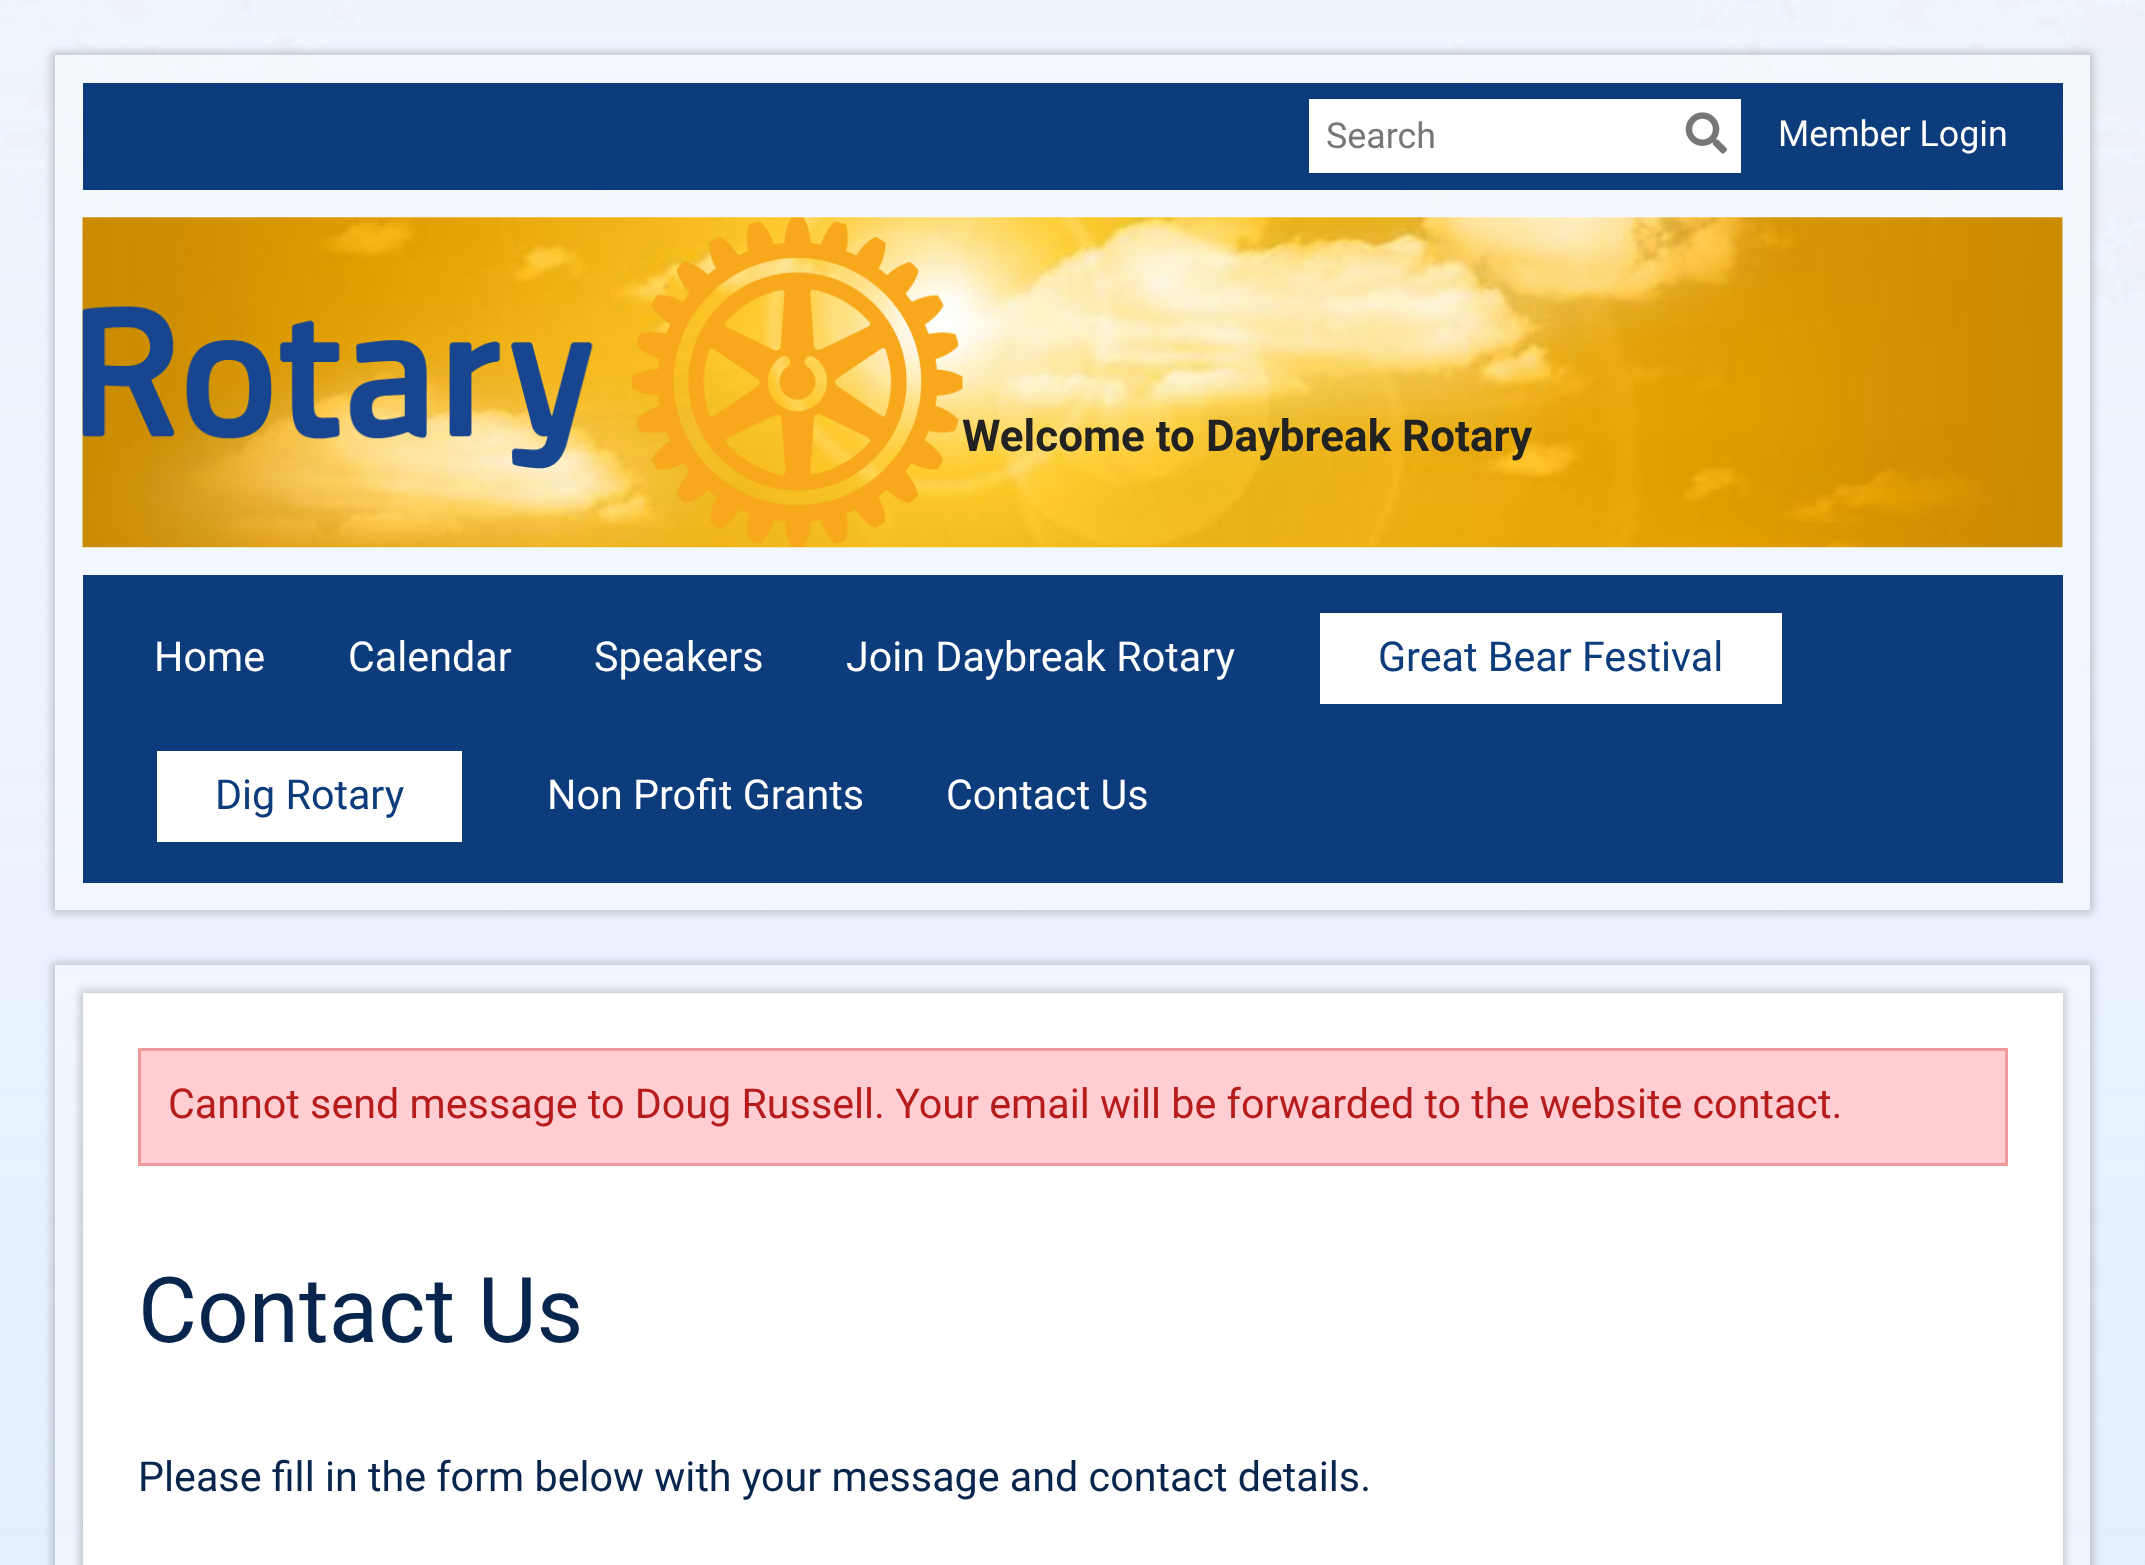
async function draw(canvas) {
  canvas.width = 2145;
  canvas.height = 1565;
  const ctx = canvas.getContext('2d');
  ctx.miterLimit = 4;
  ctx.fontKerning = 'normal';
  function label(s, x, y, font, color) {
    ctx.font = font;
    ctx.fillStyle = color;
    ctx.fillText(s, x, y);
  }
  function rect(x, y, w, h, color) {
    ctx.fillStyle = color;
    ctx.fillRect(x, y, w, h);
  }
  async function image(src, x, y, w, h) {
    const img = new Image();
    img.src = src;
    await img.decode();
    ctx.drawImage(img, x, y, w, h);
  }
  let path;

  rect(0, 0, 2145, 1565, '#fff');
  await image('assets/img1.png', 0, 0, 2145, 1565);
  ctx.save();
  path = new Path2D('M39 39H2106V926H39ZM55 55H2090V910H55Z');
  ctx.clip(path, 'evenodd');
  ctx.fillStyle = '#00000033';
  ctx.filter = 'blur(4px)';
  ctx.beginPath();
  ctx.rect(52, 52, 2041, 861);
  ctx.fill();
  ctx.filter = 'none';
  ctx.restore();
  rect(55, 55, 2035, 855, '#ffffff66');
  rect(83, 83, 1980, 107, '#0c3c7c');
  rect(1309, 99, 432, 74, '#fff');
  label('Search', 1326, 148, '35.75px Roboto', '#777');
  await image('assets/img2.png', 1685, 112, 42, 42);
  label('Member Login', 1778, 146, '35.75px Roboto', '#fff');
  await image('assets/img3.png', 82, 217, 1981, 331);
  await image('assets/img4.png', 82, 217, 881, 331);
  label('Welcome to Daybreak Rotary', 962, 451, 'bold 44px Roboto', '#222');
  rect(83, 575, 1980, 308, '#0c3c7c');
  label('Home', 154, 671, '41.25px Roboto', '#fff');
  label('Calendar', 348, 671, '41.25px Roboto', '#fff');
  label('Speakers', 594, 671, '41.25px Roboto', '#fff');
  label('Join Daybreak Rotary', 846, 671, '41.25px Roboto', '#fff');
  rect(1320, 613, 462, 91, '#fff');
  label('Great Bear Festival', 1378, 671, '41.25px Roboto', '#0c3c7c');
  rect(157, 751, 305, 91, '#fff');
  label('Dig Rotary', 215, 809, '41.25px Roboto', '#0c3c7c');
  label('Non Profit Grants', 547, 809, '41.25px Roboto', '#fff');
  label('Contact Us', 946, 809, '41.25px Roboto', '#fff');
  ctx.save();
  path = new Path2D('M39 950H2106V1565H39ZM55 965H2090V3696H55Z');
  ctx.clip(path, 'evenodd');
  ctx.fillStyle = '#00000033';
  ctx.filter = 'blur(4px)';
  ctx.beginPath();
  ctx.rect(52, 963, 2041, 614);
  ctx.fill();
  ctx.filter = 'none';
  ctx.restore();
  rect(55, 965, 2035, 600, '#ffffff66');
  ctx.fillStyle = '#00000033';
  ctx.filter = 'blur(4px)';
  ctx.beginPath();
  ctx.rect(80, 990, 1985, 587);
  ctx.fill();
  ctx.filter = 'none';
  rect(83, 993, 1980, 572, '#fff');
  ctx.fillStyle = '#ffcdd2';
  ctx.beginPath();
  ctx.rect(139.5, 1049.5, 1867, 115);
  ctx.fill();
  ctx.strokeStyle = '#ef9a9a';
  ctx.lineWidth = 3;
  ctx.stroke();
  label('Cannot send message to Doug Russell. Your email will be forwarded to the website contact.', 168, 1118, '41.25px Roboto', '#b71c1c');
  label('Contact Us', 138, 1342, '90.75px Roboto', '#08254e');
  label('Please fill in the form below with your message and contact details.', 138, 1491, '41.25px Roboto', '#08254e');
}

draw(document.querySelector('canvas'));
